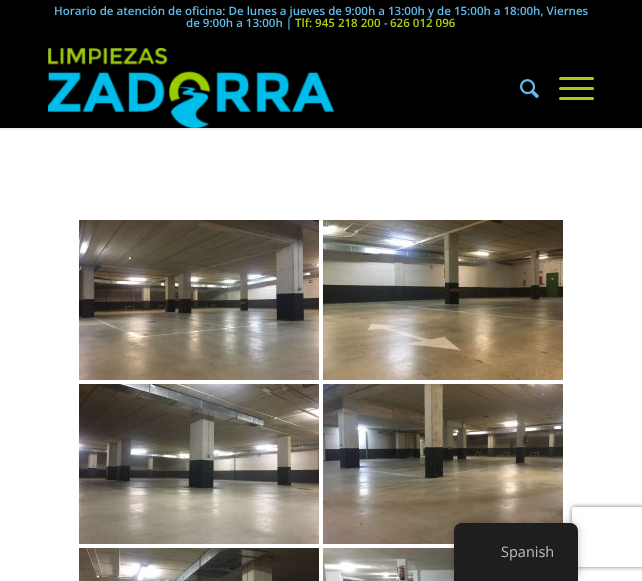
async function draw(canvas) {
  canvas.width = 642;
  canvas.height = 581;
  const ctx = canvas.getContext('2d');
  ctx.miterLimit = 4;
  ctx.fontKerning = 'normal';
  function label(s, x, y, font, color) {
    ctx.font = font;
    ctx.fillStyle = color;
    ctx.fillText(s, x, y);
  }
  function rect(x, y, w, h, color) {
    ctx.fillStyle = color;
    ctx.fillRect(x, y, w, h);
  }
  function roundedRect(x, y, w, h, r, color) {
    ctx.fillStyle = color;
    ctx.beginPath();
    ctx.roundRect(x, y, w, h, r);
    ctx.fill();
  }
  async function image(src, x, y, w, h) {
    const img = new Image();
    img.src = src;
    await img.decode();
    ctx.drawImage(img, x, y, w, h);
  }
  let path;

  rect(0, 0, 642, 581, '#000');
  rect(0, 128, 642, 453, '#fff');
  ctx.save();
  ctx.beginPath();
  ctx.rect(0, 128, 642, 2);
  ctx.clip();
  ctx.fillStyle = '#0000001a';
  ctx.filter = 'blur(1px)';
  ctx.beginPath();
  ctx.rect(-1, -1, 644, 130);
  ctx.fill();
  ctx.filter = 'none';
  ctx.restore();
  label('Horario de atención de oficina: De lunes a jueves de 9:00h a 13:00h y de 15:00h a 18:00h, Viernes', 54, 15, '600 11.55px Open Sans', '#60bbe8');
  label('de 9:00h a 13:00h |', 186, 27, '600 11.55px Open Sans', '#60bbe8');
  label('Tlf: 945 218 200', 295, 27, '600 11.55px Open Sans', '#abcd11');
  label('-', 384, 27, '600 11.55px Open Sans', '#60bbe8');
  label('626 012 096', 390, 27, '600 11.55px Open Sans', '#abcd11');
  await image('assets/img1.png', 48, 48, 286, 80);
  await image('assets/img2.png', 520, 79, 19, 20);
  roundedRect(559, 87, 35, 3, 1.5, '#abcd11');
  roundedRect(559, 77, 35, 3, 1.5, '#abcd11');
  roundedRect(559, 97, 35, 3, 1.5, '#abcd11');
  await image('assets/img3.png', 79, 220, 240, 160);
  await image('assets/img4.png', 323, 220, 240, 160);
  await image('assets/img5.png', 79, 384, 240, 160);
  await image('assets/img6.png', 323, 384, 240, 160);
  await image('assets/img7.png', 79, 548, 240, 33);
  await image('assets/img8.png', 323, 548, 131, 33);
  ctx.fillStyle = '#00000040';
  ctx.filter = 'blur(4px)';
  ctx.beginPath();
  ctx.roundRect(454, 523, 124, 58, 8);
  ctx.fill();
  ctx.filter = 'none';
  ctx.save();
  path = new Path2D('M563 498H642V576H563ZM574 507H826C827 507 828 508 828 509V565C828 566 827 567 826 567H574C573 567 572 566 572 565V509C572 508 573 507 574 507Z');
  ctx.clip(path, 'evenodd');
  ctx.fillStyle = '#808080';
  ctx.filter = 'blur(2.5px)';
  ctx.beginPath();
  ctx.roundRect(572, 507, 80, 60, 2);
  ctx.fill();
  ctx.filter = 'none';
  ctx.restore();
  ctx.fillStyle = '#1e1e1e';
  ctx.beginPath();
  ctx.roundRect(454, 523, 124, 58, [8, 8, 0, 0]);
  ctx.fill();
  label('Spanish', 501, 557, '14.5px Open Sans', '#bdbdbd');
}

draw(document.querySelector('canvas'));
